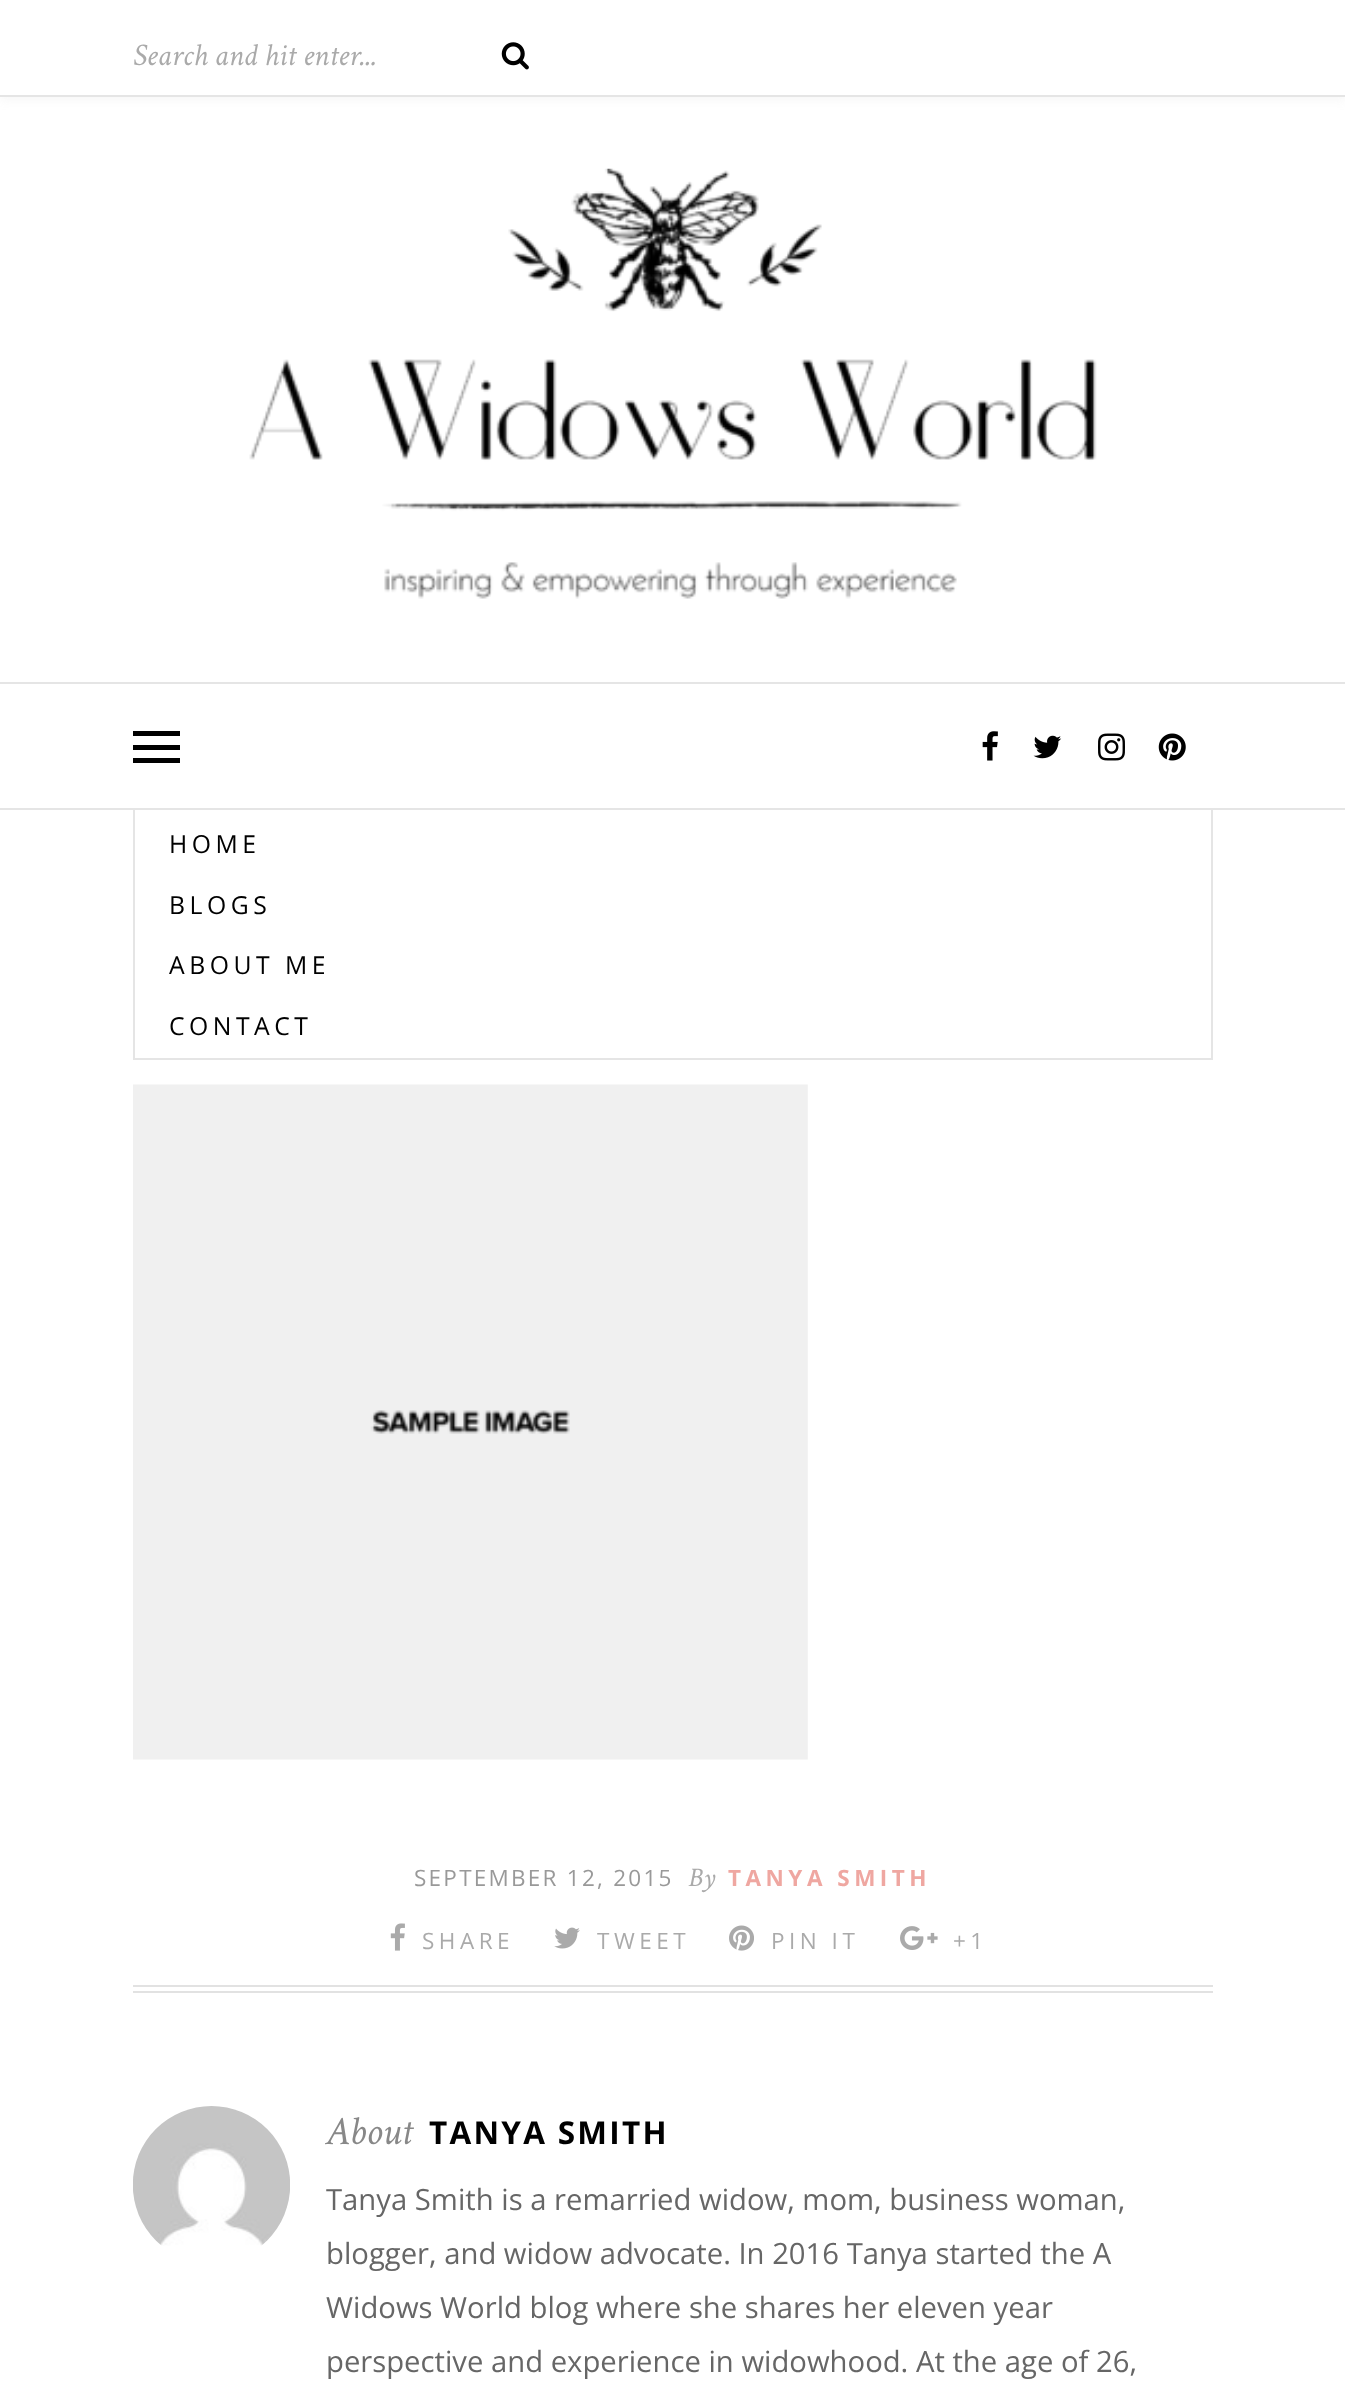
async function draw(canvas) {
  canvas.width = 1345;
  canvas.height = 2402;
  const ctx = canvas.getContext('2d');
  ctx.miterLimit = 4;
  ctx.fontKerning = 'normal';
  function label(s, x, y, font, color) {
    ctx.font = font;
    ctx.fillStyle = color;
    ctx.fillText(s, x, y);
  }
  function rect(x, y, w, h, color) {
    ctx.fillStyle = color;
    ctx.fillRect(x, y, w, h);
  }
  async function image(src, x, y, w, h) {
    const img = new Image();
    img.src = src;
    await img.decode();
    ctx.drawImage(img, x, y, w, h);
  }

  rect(0, 0, 1345, 2402, '#fff');
  ctx.fillStyle = '#bebebe29';
  ctx.filter = 'blur(5.5px)';
  ctx.beginPath();
  ctx.rect(0, 2, 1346, 97);
  ctx.fill();
  ctx.filter = 'none';
  rect(0, 0, 1345, 95, '#fff');
  rect(0, 95, 1345, 2, '#e5e5e5');
  label('Search and hit enter...', 133, 65, 'italic 31.5px Crimson Text', '#aaa');
  await image('assets/img1.png', 501, 42, 28, 28);
  await image('assets/img2.png', 249, 168, 848, 431);
  rect(0, 682, 1345, 2, '#e5e5e5');
  rect(0, 808, 1345, 2, '#e5e5e5');
  await image('assets/img3.png', 982, 731, 16, 30);
  await image('assets/img4.png', 1033, 735, 29, 24);
  await image('assets/img5.png', 1098, 733, 27, 28);
  await image('assets/img6.png', 1158, 733, 28, 28);
  rect(133, 731, 47, 5, '#000');
  rect(133, 745, 47, 5, '#000');
  rect(133, 758, 47, 5, '#000');
  ctx.strokeStyle = '#e5e5e5';
  ctx.lineWidth = 2;
  ctx.strokeRect(134, 809, 1078, 250);
  ctx.letterSpacing = '4.5px';
  label('HOME', 169, 853, '24.75px Open Sans', '#000');
  label('BLOGS', 169, 914, '24.75px Open Sans', '#000');
  label('ABOUT ME', 169, 974, '24.75px Open Sans', '#000');
  label('CONTACT', 169, 1035, '24.75px Open Sans', '#000');
  await image('assets/img7.png', 133, 1084, 675, 676);
  rect(133, 1985, 1080, 2, '#e2e2e2');
  rect(133, 1991, 1080, 2, '#e2e2e2');
  ctx.letterSpacing = '2.25px';
  label('SEPTEMBER 12, 2015', 414, 1886, '22.5px Open Sans', '#999');
  ctx.letterSpacing = '0px';
  label('By', 688, 1886, 'italic 27px Crimson Text', '#aaa');
  ctx.letterSpacing = '4.5px';
  label('TANYA SMITH', 728, 1886, 'bold 22.5px Open Sans', '#efa7a1');
  await image('assets/img8.png', 390, 1923, 15, 28);
  label('SHARE', 422, 1949, '22.5px Open Sans', '#aaa');
  await image('assets/img9.png', 554, 1927, 26, 22);
  label('TWEET', 597, 1949, '22.5px Open Sans', '#aaa');
  await image('assets/img10.png', 729, 1925, 25, 26);
  label('PIN IT', 771, 1949, '22.5px Open Sans', '#aaa');
  await image('assets/img11.png', 900, 1926, 38, 24);
  label('+1', 953, 1949, '22.5px Open Sans', '#aaa');
  await image('assets/img12.png', 133, 2106, 157, 140);
  ctx.letterSpacing = '0px';
  label('About', 326, 2144, 'italic 40.5px Crimson Text', '#888');
  ctx.letterSpacing = '2.25px';
  label('TANYA SMITH', 429, 2144, 'bold 31.5px Open Sans', '#000');
  ctx.letterSpacing = '0px';
  label('Tanya Smith is a remarried widow, mom, business woman,', 326, 2210, '29.25px Open Sans', '#666');
  label('blogger, and widow advocate. In 2016 Tanya started the A', 326, 2264, '29.25px Open Sans', '#666');
  label('Widows World blog where she shares her eleven year', 326, 2318, '29.25px Open Sans', '#666');
  label('perspective and experience in widowhood. At the age of 26,', 326, 2372, '29.25px Open Sans', '#666');
}

draw(document.querySelector('canvas'));
